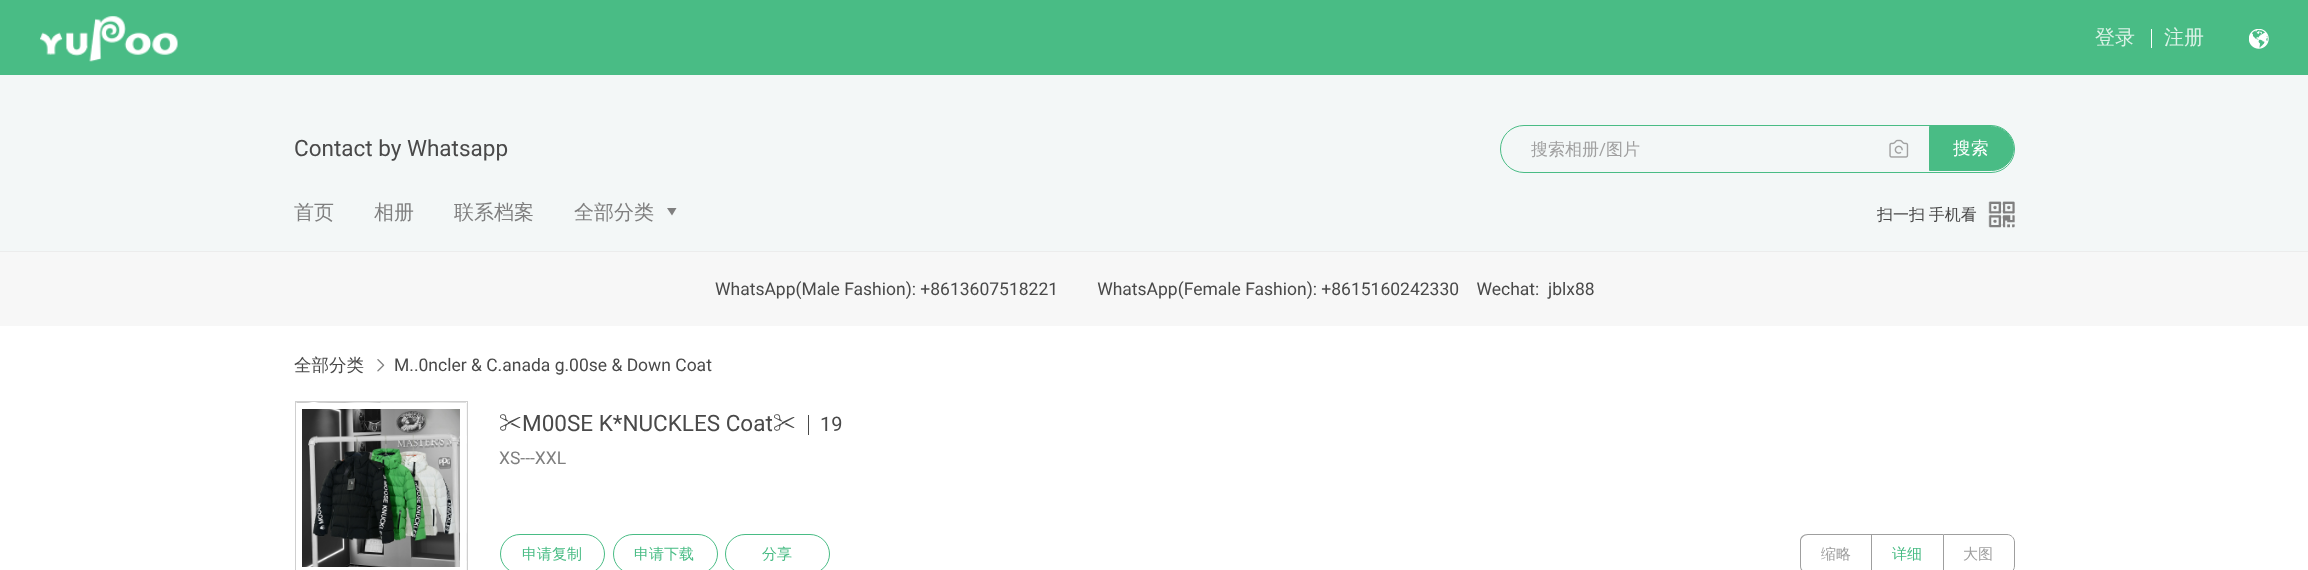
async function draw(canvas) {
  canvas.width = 2308;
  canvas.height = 570;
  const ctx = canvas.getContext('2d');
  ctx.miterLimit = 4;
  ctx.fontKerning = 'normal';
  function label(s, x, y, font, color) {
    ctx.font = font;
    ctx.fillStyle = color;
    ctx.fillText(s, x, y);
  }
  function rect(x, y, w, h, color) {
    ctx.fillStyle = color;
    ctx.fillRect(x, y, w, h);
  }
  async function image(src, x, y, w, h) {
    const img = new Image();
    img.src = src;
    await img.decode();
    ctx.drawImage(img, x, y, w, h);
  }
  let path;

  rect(0, 0, 2308, 570, '#fff');
  rect(0, 0, 2308, 75, '#49bc85');
  await image('assets/img1.png', 40, 16, 138, 46);
  label('登录', 2095, 44, '500 20px WenQuanYi Zen Hei', '#dbf2e7');
  rect(2151, 29, 1, 19, '#fff');
  label('注册', 2164, 44, '500 20px WenQuanYi Zen Hei', '#dbf2e7');
  await image('assets/img2.png', 2249, 29, 20, 20);
  rect(0, 75, 2308, 176, '#f3f7f7');
  label('Contact by Whatsapp', 294, 156, '22.5px Roboto', '#494949');
  ctx.beginPath();
  ctx.roundRect(1500.5, 125.5, 514, 47, 23.5);
  ctx.strokeStyle = '#49bc85';
  ctx.stroke();
  label('搜索相册', 1531, 155, '500 17px WenQuanYi Zen Hei', '#9f9f9f');
  label('/', 1599, 155, '17px Roboto', '#9f9f9f');
  label('图片', 1606, 155, '500 17px WenQuanYi Zen Hei', '#9f9f9f');
  await image('assets/img3.png', 1889, 139, 20, 19);
  ctx.fillStyle = '#49bc85';
  ctx.beginPath();
  ctx.roundRect(1929.5, 126.5, 84, 44, [0, 22, 22, 0]);
  ctx.fill();
  ctx.stroke();
  label('搜', 1953, 154, '17.5px Noto Sans', '#fff');
  label('索', 1971, 154, '500 17.5px WenQuanYi Zen Hei', '#fff');
  label('首页', 294, 219, '500 20px WenQuanYi Zen Hei', '#7f7f7f');
  label('相册', 374, 219, '500 20px WenQuanYi Zen Hei', '#7f7f7f');
  label('联系档案', 454, 219, '500 20px WenQuanYi Zen Hei', '#7f7f7f');
  label('全部分类', 574, 219, '500 20px WenQuanYi Zen Hei', '#7f7f7f');
  path = new Path2D('M672 215.5L667 208H676.5Z');
  ctx.fill(path);
  ctx.wordSpacing = '-1px';
  label('扫一扫 手机看', 1877, 220, '500 16px WenQuanYi Zen Hei', '#494949');
  await image('assets/img4.png', 1988, 201, 27, 27);
  rect(0, 252, 2308, 74, '#f7f7f7');
  rect(0, 251, 2308, 1, '#ececec');
  ctx.wordSpacing = '0px';
  label('WhatsApp(Male Fashion): +8613607518221         WhatsApp(Female Fashion): +8615160242330    Wechat:  jblx88', 715, 295, '17.5px Roboto', '#494949');
  label('全部分类', 294, 371, '500 17.5px WenQuanYi Zen Hei', '#494949');
  await image('assets/img5.png', 377, 359, 8, 13);
  label('M..0ncler & C.anada g.00se & Down Coat', 394, 371, '17.5px Roboto', '#494949');
  ctx.strokeStyle = '#cfcfcf';
  ctx.strokeRect(295.5, 401.5, 172, 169);
  await image('assets/img6.png', 296, 402, 171, 168);
  ctx.strokeStyle = '#fff';
  ctx.lineWidth = 6;
  ctx.strokeRect(299, 406, 164, 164);
  label('✂', 499, 431, '22.5px Noto Sans CJK SC', '#494949');
  label('M00SE K*NUCKLES Coat', 522, 431, '22.5px Roboto', '#494949');
  label('✂', 773, 431, '22.5px Noto Sans CJK SC', '#494949');
  rect(808, 415, 1, 20, '#494949');
  label('19', 820, 431, '20px Roboto', '#494949');
  label('XS---XXL', 499, 464, '17.5px Roboto', '#7f7f7f');
  ctx.beginPath();
  ctx.roundRect(500.5, 534.5, 104, 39, 19.5);
  ctx.strokeStyle = '#49bc85';
  ctx.lineWidth = 1;
  ctx.stroke();
  label('申请复制', 522, 559, '500 15px WenQuanYi Zen Hei', '#49bc85');
  ctx.beginPath();
  ctx.roundRect(613.5, 534.5, 104, 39, 19.5);
  ctx.stroke();
  label('申请下载', 634, 559, '500 15px WenQuanYi Zen Hei', '#49bc85');
  ctx.beginPath();
  ctx.roundRect(725.5, 534.5, 104, 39, 19.5);
  ctx.stroke();
  label('分享', 762, 559, '500 15px WenQuanYi Zen Hei', '#49bc85');
  ctx.fillStyle = '#9f9f9f';
  path = new Path2D('M1808 534H1871V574H1808C1803 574 1800 570 1800 566V541C1800 537 1803 534 1808 534ZM1808 535H1871V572H1808C1804 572 1801 570 1801 566V541C1801 538 1804 535 1808 535Z');
  ctx.fill(path, 'evenodd');
  label('缩略', 1821, 559, '500 15px WenQuanYi Zen Hei', '#9f9f9f');
  rect(1871, 534, 72, 1, '#9f9f9f');
  rect(1871, 534, 1, 36, '#9f9f9f');
  label('详细', 1892, 559, '500 15px WenQuanYi Zen Hei', '#49bc85');
  path = new Path2D('M1943.5 534.5H2007C2011 534.5 2014.5 538 2014.5 542V566C2014.5 570 2011 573.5 2007 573.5H1943.5Z');
  ctx.strokeStyle = '#9f9f9f';
  ctx.stroke(path);
  label('大图', 1963, 559, '500 15px WenQuanYi Zen Hei', '#9f9f9f');
}

draw(document.querySelector('canvas'));
